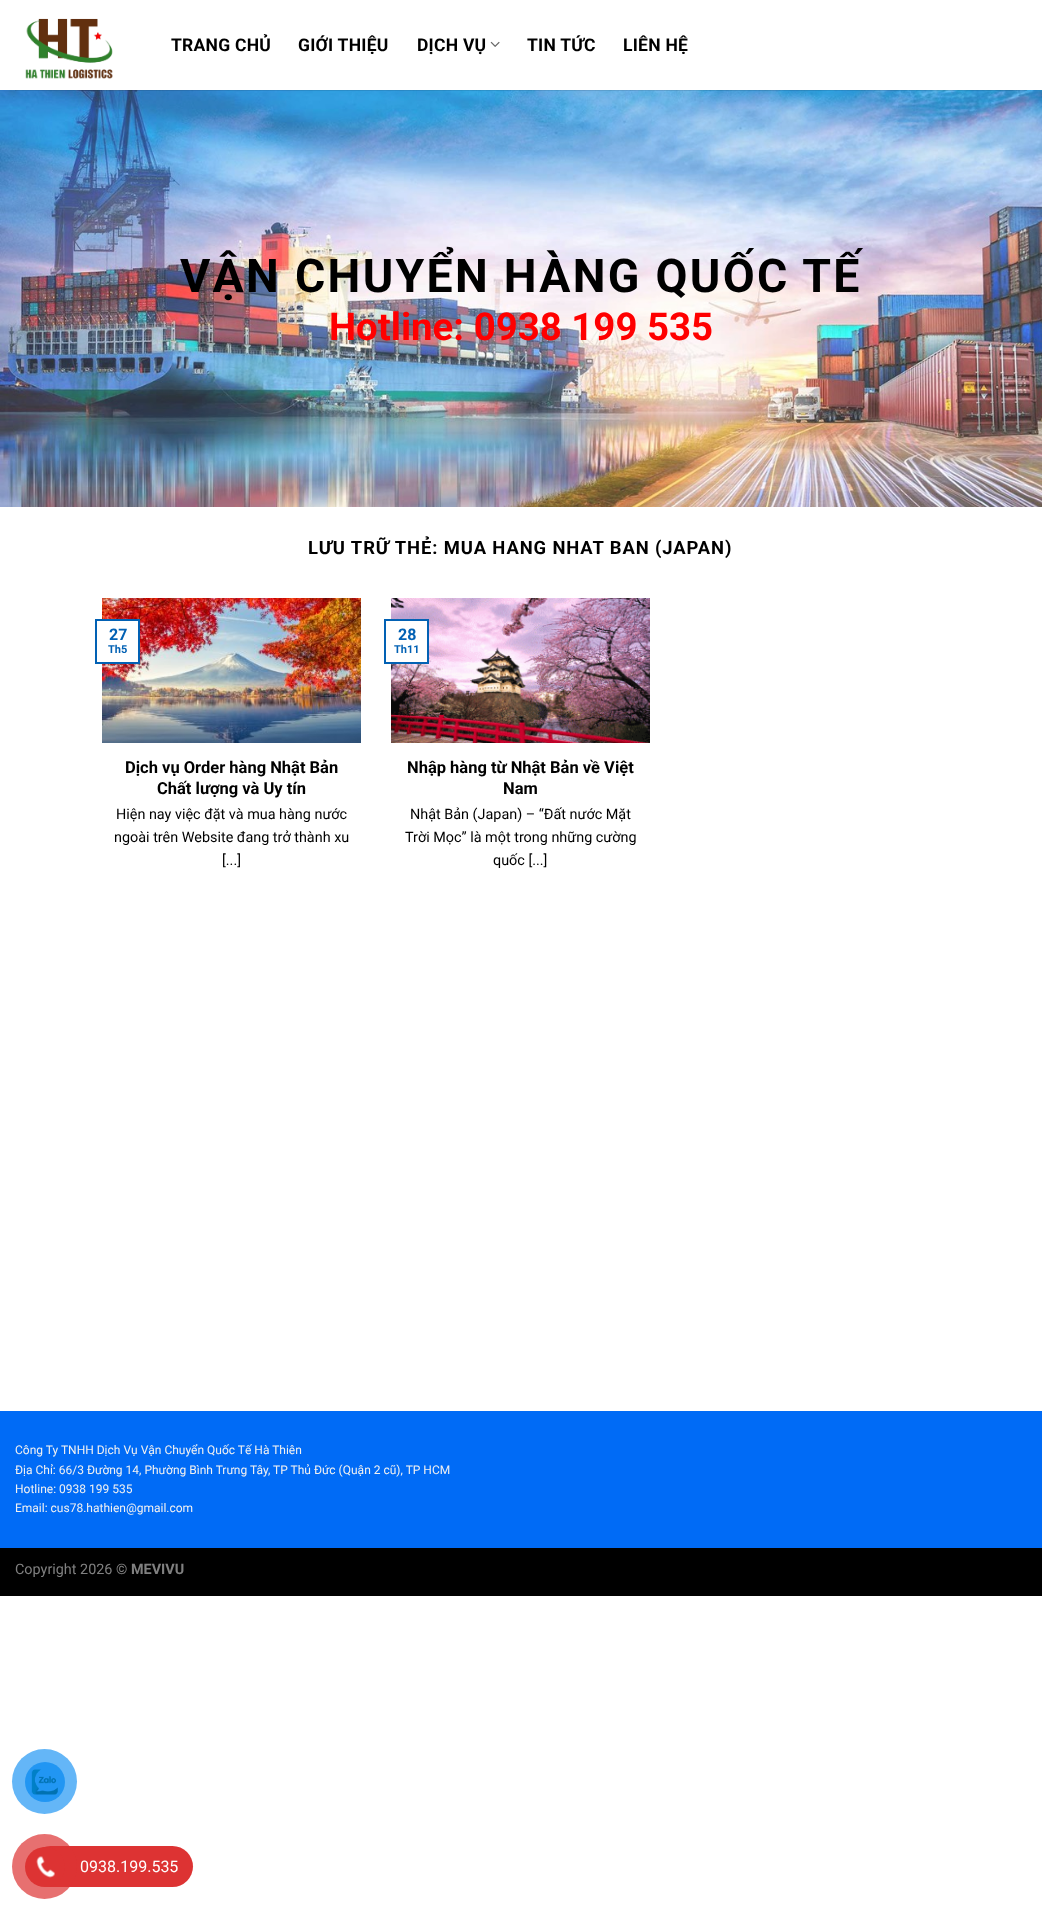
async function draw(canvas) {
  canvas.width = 1042;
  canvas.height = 1912;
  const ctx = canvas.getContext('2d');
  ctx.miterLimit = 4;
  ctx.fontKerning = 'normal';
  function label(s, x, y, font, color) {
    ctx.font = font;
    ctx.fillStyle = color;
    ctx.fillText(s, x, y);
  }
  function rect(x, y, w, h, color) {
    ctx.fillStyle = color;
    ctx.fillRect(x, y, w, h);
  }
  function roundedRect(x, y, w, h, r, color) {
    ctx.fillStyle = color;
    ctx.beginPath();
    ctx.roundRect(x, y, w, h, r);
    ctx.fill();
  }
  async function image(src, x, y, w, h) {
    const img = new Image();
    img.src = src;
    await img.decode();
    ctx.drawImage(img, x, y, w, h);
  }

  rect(0, 0, 1042, 1912, '#fff');
  await image('assets/img1.png', 25, 18, 88, 61);
  ctx.letterSpacing = '0.25px';
  label('TRANG CHỦ', 171, 51, 'bold 17.5px Roboto', '#000');
  label('GIỚI THIỆU', 298, 51, 'bold 17.5px Roboto', '#000');
  label('DỊCH VỤ', 417, 51, 'bold 17.5px Roboto', '#000');
  await image('assets/img2.png', 490, 41, 10, 6);
  label('TIN TỨC', 527, 51, 'bold 17.5px Roboto', '#000');
  label('LIÊN HỆ', 623, 51, 'bold 17.5px Roboto', '#000');
  await image('assets/img3.png', 0, 90, 1042, 417);
  rect(15, 90, 1012, 1, '#0000001a');
  ctx.letterSpacing = '2.3px';
  label('VẬN CHUYỂN HÀNG QUỐC TẾ', 180, 292, 'bold 46.4px Roboto', '#000');
  ctx.letterSpacing = '0px';
  label('Hotline: 0938 199 535', 329, 340, 'bold 38.4px Roboto', '#f00');
  ctx.letterSpacing = '0.9px';
  label('LƯU TRỮ THẺ: MUA HANG NHAT BAN (JAPAN)', 308, 554, 'bold 18.4px Roboto', '#000');
  await image('assets/img4.png', 102, 598, 259, 145);
  rect(102, 621, 36, 41, '#fff');
  ctx.strokeStyle = '#0261b4';
  ctx.lineWidth = 2;
  ctx.strokeRect(96, 620, 43, 43);
  ctx.letterSpacing = '0px';
  label('27', 109, 640, 'bold 16px Roboto', '#0261b4');
  label('Th5', 108, 653, 'bold 11px Roboto', '#0261b4');
  label('Dịch vụ Order hàng Nhật Bản', 125, 773, 'bold 16.5px Roboto', '#000');
  label('Chất lượng và Uy tín', 157, 794, 'bold 16.5px Roboto', '#000');
  label('Hiện nay việc đặt và mua hàng nước', 116, 819, '14.4px Roboto', '#000');
  label('ngoài trên Website đang trở thành xu', 114, 842, '14.4px Roboto', '#000');
  label('[...]', 222, 865, '14.4px Roboto', '#000');
  await image('assets/img5.png', 391, 598, 259, 145);
  rect(391, 621, 36, 41, '#fff');
  ctx.strokeRect(385, 620, 43, 43);
  label('28', 398, 640, 'bold 16px Roboto', '#0261b4');
  label('Th11', 394, 653, 'bold 11px Roboto', '#0261b4');
  label('Nhập hàng từ Nhật Bản về Việt', 407, 773, 'bold 16.5px Roboto', '#000');
  label('Nam', 503, 794, 'bold 16.5px Roboto', '#000');
  label('Nhật Bản (Japan) – “Đất nước Mặt', 410, 819, '14.4px Roboto', '#000');
  label('Trời Mọc” là một trong những cường', 405, 842, '14.4px Roboto', '#000');
  label('quốc [...]', 493, 865, '14.4px Roboto', '#000');
  rect(0, 1411, 1042, 137, '#006bf6');
  label('Công Ty TNHH Dịch Vụ Vận Chuyển Quốc Tế Hà Thiên', 15, 1454, '12px Roboto', '#f1f1f1');
  label('Địa Chỉ: 66/3 Đường 14, Phường Bình Trưng Tây, TP Thủ Đức (Quận 2 cũ), TP HCM', 15, 1474, '12px Roboto', '#f1f1f1');
  label('Hotline: 0938 199 535', 15, 1493, '12px Roboto', '#f1f1f1');
  label('Email: cus78.hathien@gmail.com', 15, 1512, '12px Roboto', '#f1f1f1');
  rect(0, 1548, 1042, 48, '#000');
  label('Copyright 2026 ©', 15, 1574, '14.4px Roboto', '#808080');
  label('MEVIVU', 131, 1574, 'bold 14.4px Roboto', '#808080');
  ctx.fillStyle = '#64b6f7';
  ctx.beginPath();
  ctx.arc(44.5, 1781.5, 32.5, 0, 2 * Math.PI);
  ctx.fill();
  ctx.fillStyle = '#2196f3';
  ctx.beginPath();
  ctx.arc(45, 1782, 20, 0, 2 * Math.PI);
  ctx.fill();
  await image('assets/img6.png', 31, 1769, 27, 26);
  roundedRect(30, 1846, 163, 41, 20.5, '#d33');
  ctx.fillStyle = '#dd3333b3';
  ctx.beginPath();
  ctx.arc(44.5, 1866.5, 32.5, 0, 2 * Math.PI);
  ctx.fill();
  ctx.fillStyle = '#d33';
  ctx.beginPath();
  ctx.arc(45, 1867, 20, 0, 2 * Math.PI);
  ctx.fill();
  await image('assets/img7.png', 36, 1856, 19, 22);
  label('0938.199.535', 80, 1872, '16px Roboto', '#fff');
}

draw(document.querySelector('canvas'));
